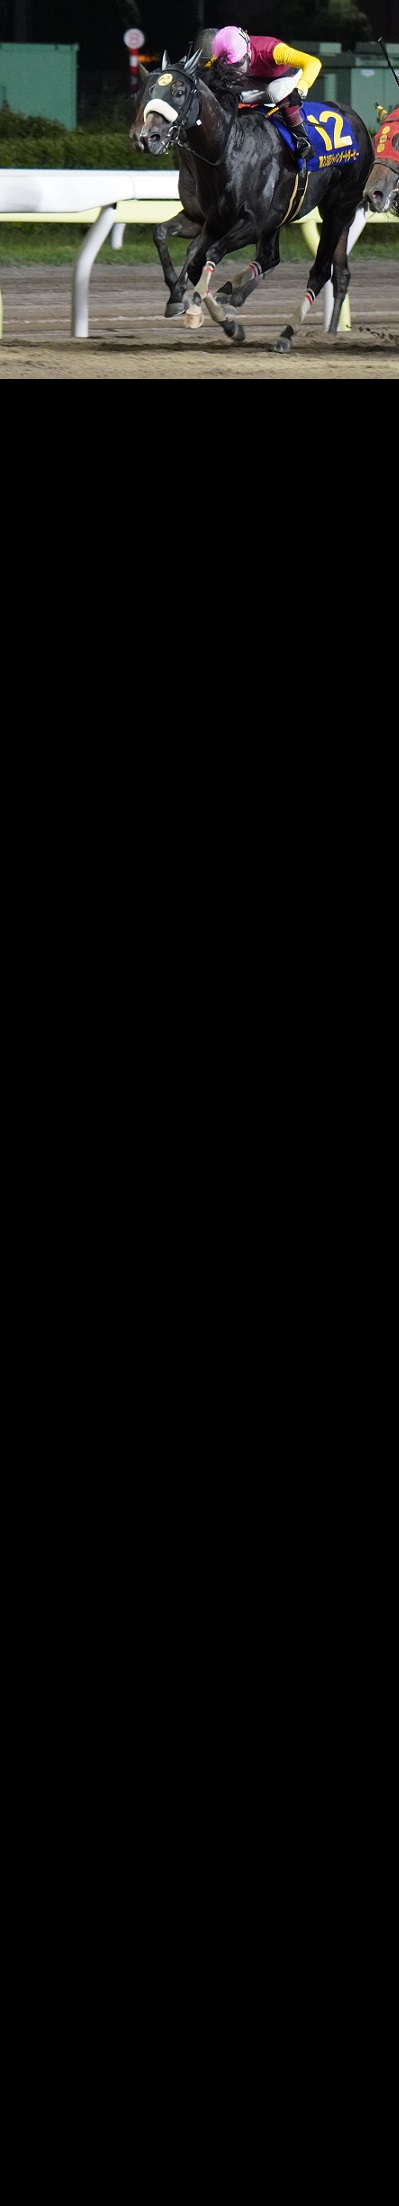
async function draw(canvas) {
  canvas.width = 399;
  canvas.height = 2206;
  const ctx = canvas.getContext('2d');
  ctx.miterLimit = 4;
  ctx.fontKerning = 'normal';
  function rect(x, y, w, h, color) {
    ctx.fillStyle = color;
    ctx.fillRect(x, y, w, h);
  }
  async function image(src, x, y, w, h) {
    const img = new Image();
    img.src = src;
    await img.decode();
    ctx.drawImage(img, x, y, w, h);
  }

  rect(0, 0, 399, 2206, '#000');
  await image('assets/img1.png', 0, 0, 399, 379);
}

draw(document.querySelector('canvas'));
